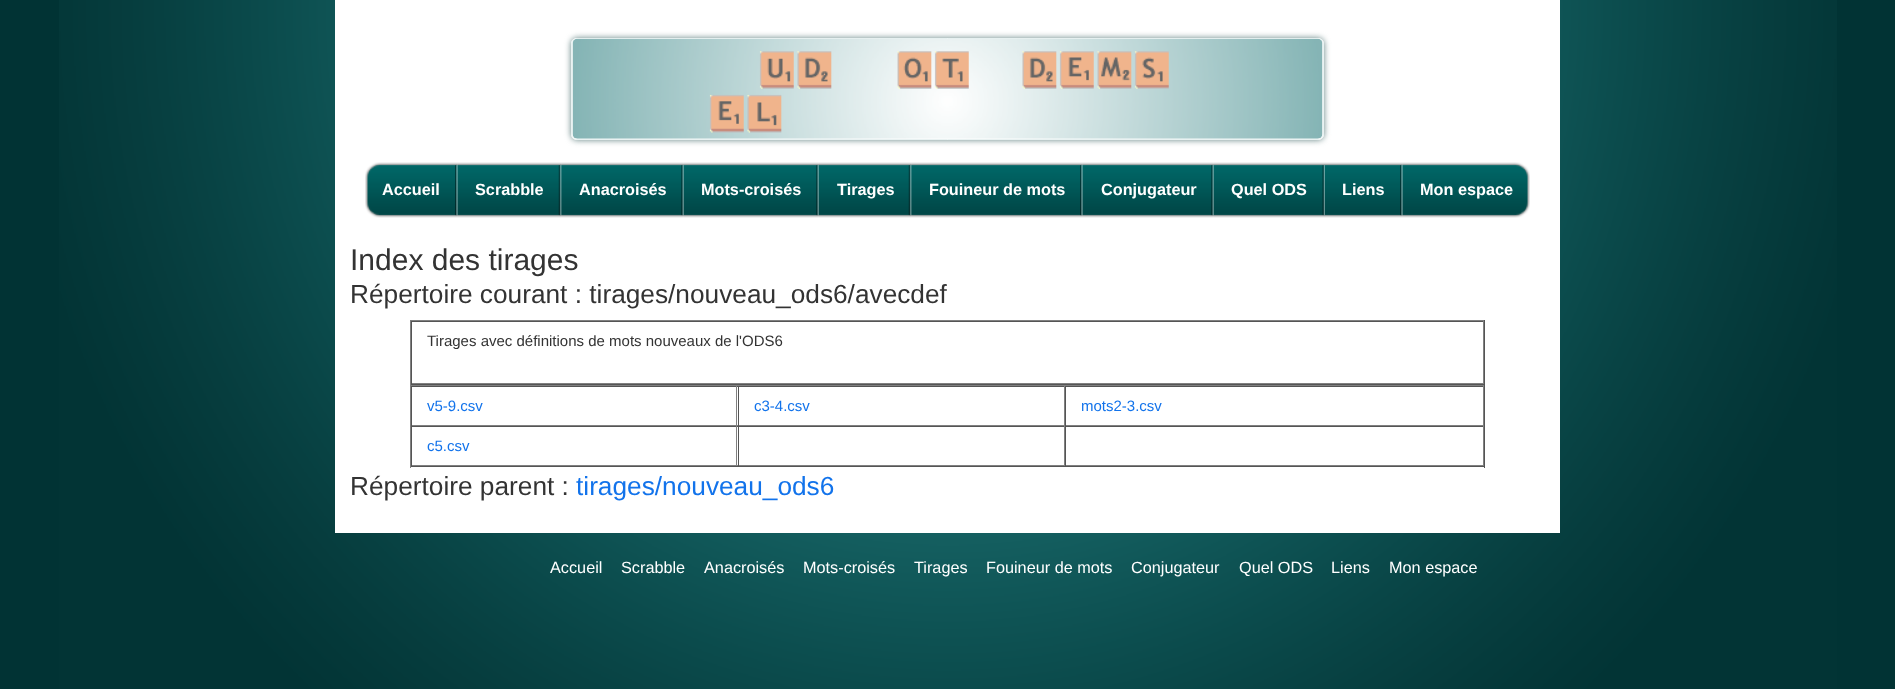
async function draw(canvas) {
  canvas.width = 1895;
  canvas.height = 689;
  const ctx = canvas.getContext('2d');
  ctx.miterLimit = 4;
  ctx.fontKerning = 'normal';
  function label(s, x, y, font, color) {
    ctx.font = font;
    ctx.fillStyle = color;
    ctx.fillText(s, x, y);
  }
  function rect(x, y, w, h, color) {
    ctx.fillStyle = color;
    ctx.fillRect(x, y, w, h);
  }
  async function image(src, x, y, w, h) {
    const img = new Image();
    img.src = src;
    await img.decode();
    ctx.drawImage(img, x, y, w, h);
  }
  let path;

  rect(0, 0, 1895, 689, '#013334');
  await image('assets/img1.png', 59, 0, 1778, 689);
  rect(335, 0, 1225, 533, '#fff');
  ctx.save();
  path = new Path2D('M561 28H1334V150H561ZM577 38H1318C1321.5 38 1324 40.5 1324 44V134C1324 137.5 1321.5 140 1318 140H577C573.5 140 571 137.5 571 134V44C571 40.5 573.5 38 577 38Z');
  ctx.clip(path, 'evenodd');
  ctx.fillStyle = '#658484';
  ctx.filter = 'blur(3px)';
  ctx.beginPath();
  ctx.roundRect(571, 38, 753, 102, 6);
  ctx.fill();
  ctx.filter = 'none';
  ctx.restore();
  ctx.beginPath();
  ctx.roundRect(571.5, 38.5, 752, 101, 5.5);
  ctx.strokeStyle = '#e9f2f2';
  ctx.stroke();
  await image('assets/img2.png', 572, 38, 751, 101);
  await image('assets/img3.png', 365, 162, 93, 56);
  await image('assets/img4.png', 455, 165, 3, 51);
  label('Accueil', 382, 195, 'bold 16.25px Liberation Sans', '#fff');
  await image('assets/img5.png', 457, 162, 105, 56);
  await image('assets/img6.png', 558, 165, 4, 51);
  label('Scrabble', 475, 195, 'bold 16.25px Liberation Sans', '#fff');
  await image('assets/img7.png', 561, 162, 123, 56);
  await image('assets/img8.png', 681, 165, 3, 51);
  label('Anacroisés', 579, 195, 'bold 16.25px Liberation Sans', '#fff');
  await image('assets/img9.png', 683, 162, 136, 56);
  await image('assets/img8.png', 816, 165, 3, 51);
  label('Mots-croisés', 701, 195, 'bold 16.25px Liberation Sans', '#fff');
  await image('assets/img10.png', 818, 162, 94, 56);
  await image('assets/img6.png', 908, 165, 4, 51);
  label('Tirages', 837, 195, 'bold 16.25px Liberation Sans', '#fff');
  await image('assets/img11.png', 911, 162, 172, 56);
  await image('assets/img4.png', 1080, 165, 3, 51);
  label('Fouineur de mots', 929, 195, 'bold 16.25px Liberation Sans', '#fff');
  await image('assets/img12.png', 1082, 162, 132, 56);
  await image('assets/img8.png', 1211, 165, 3, 51);
  label('Conjugateur', 1101, 195, 'bold 16.25px Liberation Sans', '#fff');
  await image('assets/img13.png', 1213, 162, 112, 56);
  await image('assets/img14.png', 1322, 165, 3, 51);
  label('Quel ODS', 1231, 195, 'bold 16.25px Liberation Sans', '#fff');
  await image('assets/img15.png', 1325, 162, 78, 56);
  await image('assets/img4.png', 1400, 165, 3, 51);
  label('Liens', 1342, 195, 'bold 16.25px Liberation Sans', '#fff');
  await image('assets/img16.png', 1402, 162, 128, 56);
  label('Mon espace', 1420, 195, 'bold 16.25px Liberation Sans', '#fff');
  label('Index des tirages', 350, 270, '30px Liberation Sans', '#333');
  label('Répertoire courant : tirages/nouveau_ods6/avecdef', 350, 303, '26.25px Liberation Sans', '#333');
  rect(410, 320, 1075, 1, '#808080');
  rect(1484, 320, 1, 65, '#555');
  rect(410, 384, 1075, 1, '#555');
  rect(410, 320, 1, 65, '#808080');
  rect(411, 321, 1073, 1, '#555');
  rect(1483, 321, 1, 63, '#808080');
  rect(411, 383, 1073, 1, '#808080');
  rect(411, 321, 1, 63, '#555');
  label('Tirages avec définitions de mots nouveaux de l\'ODS6', 427, 346, '15px Liberation Sans', '#333');
  rect(410, 385, 1075, 1, '#808080');
  rect(1484, 385, 1, 83, '#555');
  rect(410, 466, 1075, 1, '#555');
  rect(410, 385, 1, 83, '#808080');
  rect(411, 386, 1073, 1, '#555');
  rect(736, 386, 1, 40, '#808080');
  rect(411, 425, 327, 1, '#808080');
  rect(411, 386, 1, 40, '#555');
  label('v5-9.csv', 427, 411, '15px Liberation Sans', '#1273eb');
  rect(1064, 386, 1, 40, '#808080');
  rect(738, 425, 327, 1, '#808080');
  rect(738, 386, 1, 40, '#555');
  label('c3-4.csv', 754, 411, '15px Liberation Sans', '#1273eb');
  rect(1483, 386, 1, 40, '#808080');
  rect(1065, 425, 419, 1, '#808080');
  rect(1065, 386, 1, 40, '#555');
  label('mots2-3.csv', 1081, 411, '15px Liberation Sans', '#1273eb');
  rect(411, 426, 1073, 1, '#555');
  rect(736, 426, 1, 40, '#808080');
  rect(411, 465, 327, 1, '#808080');
  rect(411, 426, 1, 40, '#555');
  label('c5.csv', 427, 451, '15px Liberation Sans', '#1273eb');
  rect(1064, 426, 1, 40, '#808080');
  rect(738, 465, 327, 1, '#808080');
  rect(738, 426, 1, 40, '#555');
  rect(1483, 426, 1, 40, '#808080');
  rect(1065, 465, 419, 1, '#808080');
  rect(1065, 426, 1, 40, '#555');
  label('Répertoire parent :', 350, 495, '26.25px Liberation Sans', '#333');
  label('tirages/nouveau_ods6', 576, 495, '26.25px Liberation Sans', '#1273eb');
  label('Accueil', 550, 573, '16.25px Liberation Sans', '#fff');
  label('Scrabble', 621, 573, '16.25px Liberation Sans', '#fff');
  label('Anacroisés', 704, 573, '16.25px Liberation Sans', '#fff');
  label('Mots-croisés', 803, 573, '16.25px Liberation Sans', '#fff');
  label('Tirages', 914, 573, '16.25px Liberation Sans', '#fff');
  label('Fouineur de mots', 986, 573, '16.25px Liberation Sans', '#fff');
  label('Conjugateur', 1131, 573, '16.25px Liberation Sans', '#fff');
  label('Quel ODS', 1239, 573, '16.25px Liberation Sans', '#fff');
  label('Liens', 1331, 573, '16.25px Liberation Sans', '#fff');
  label('Mon espace', 1389, 573, '16.25px Liberation Sans', '#fff');
}

draw(document.querySelector('canvas'));
